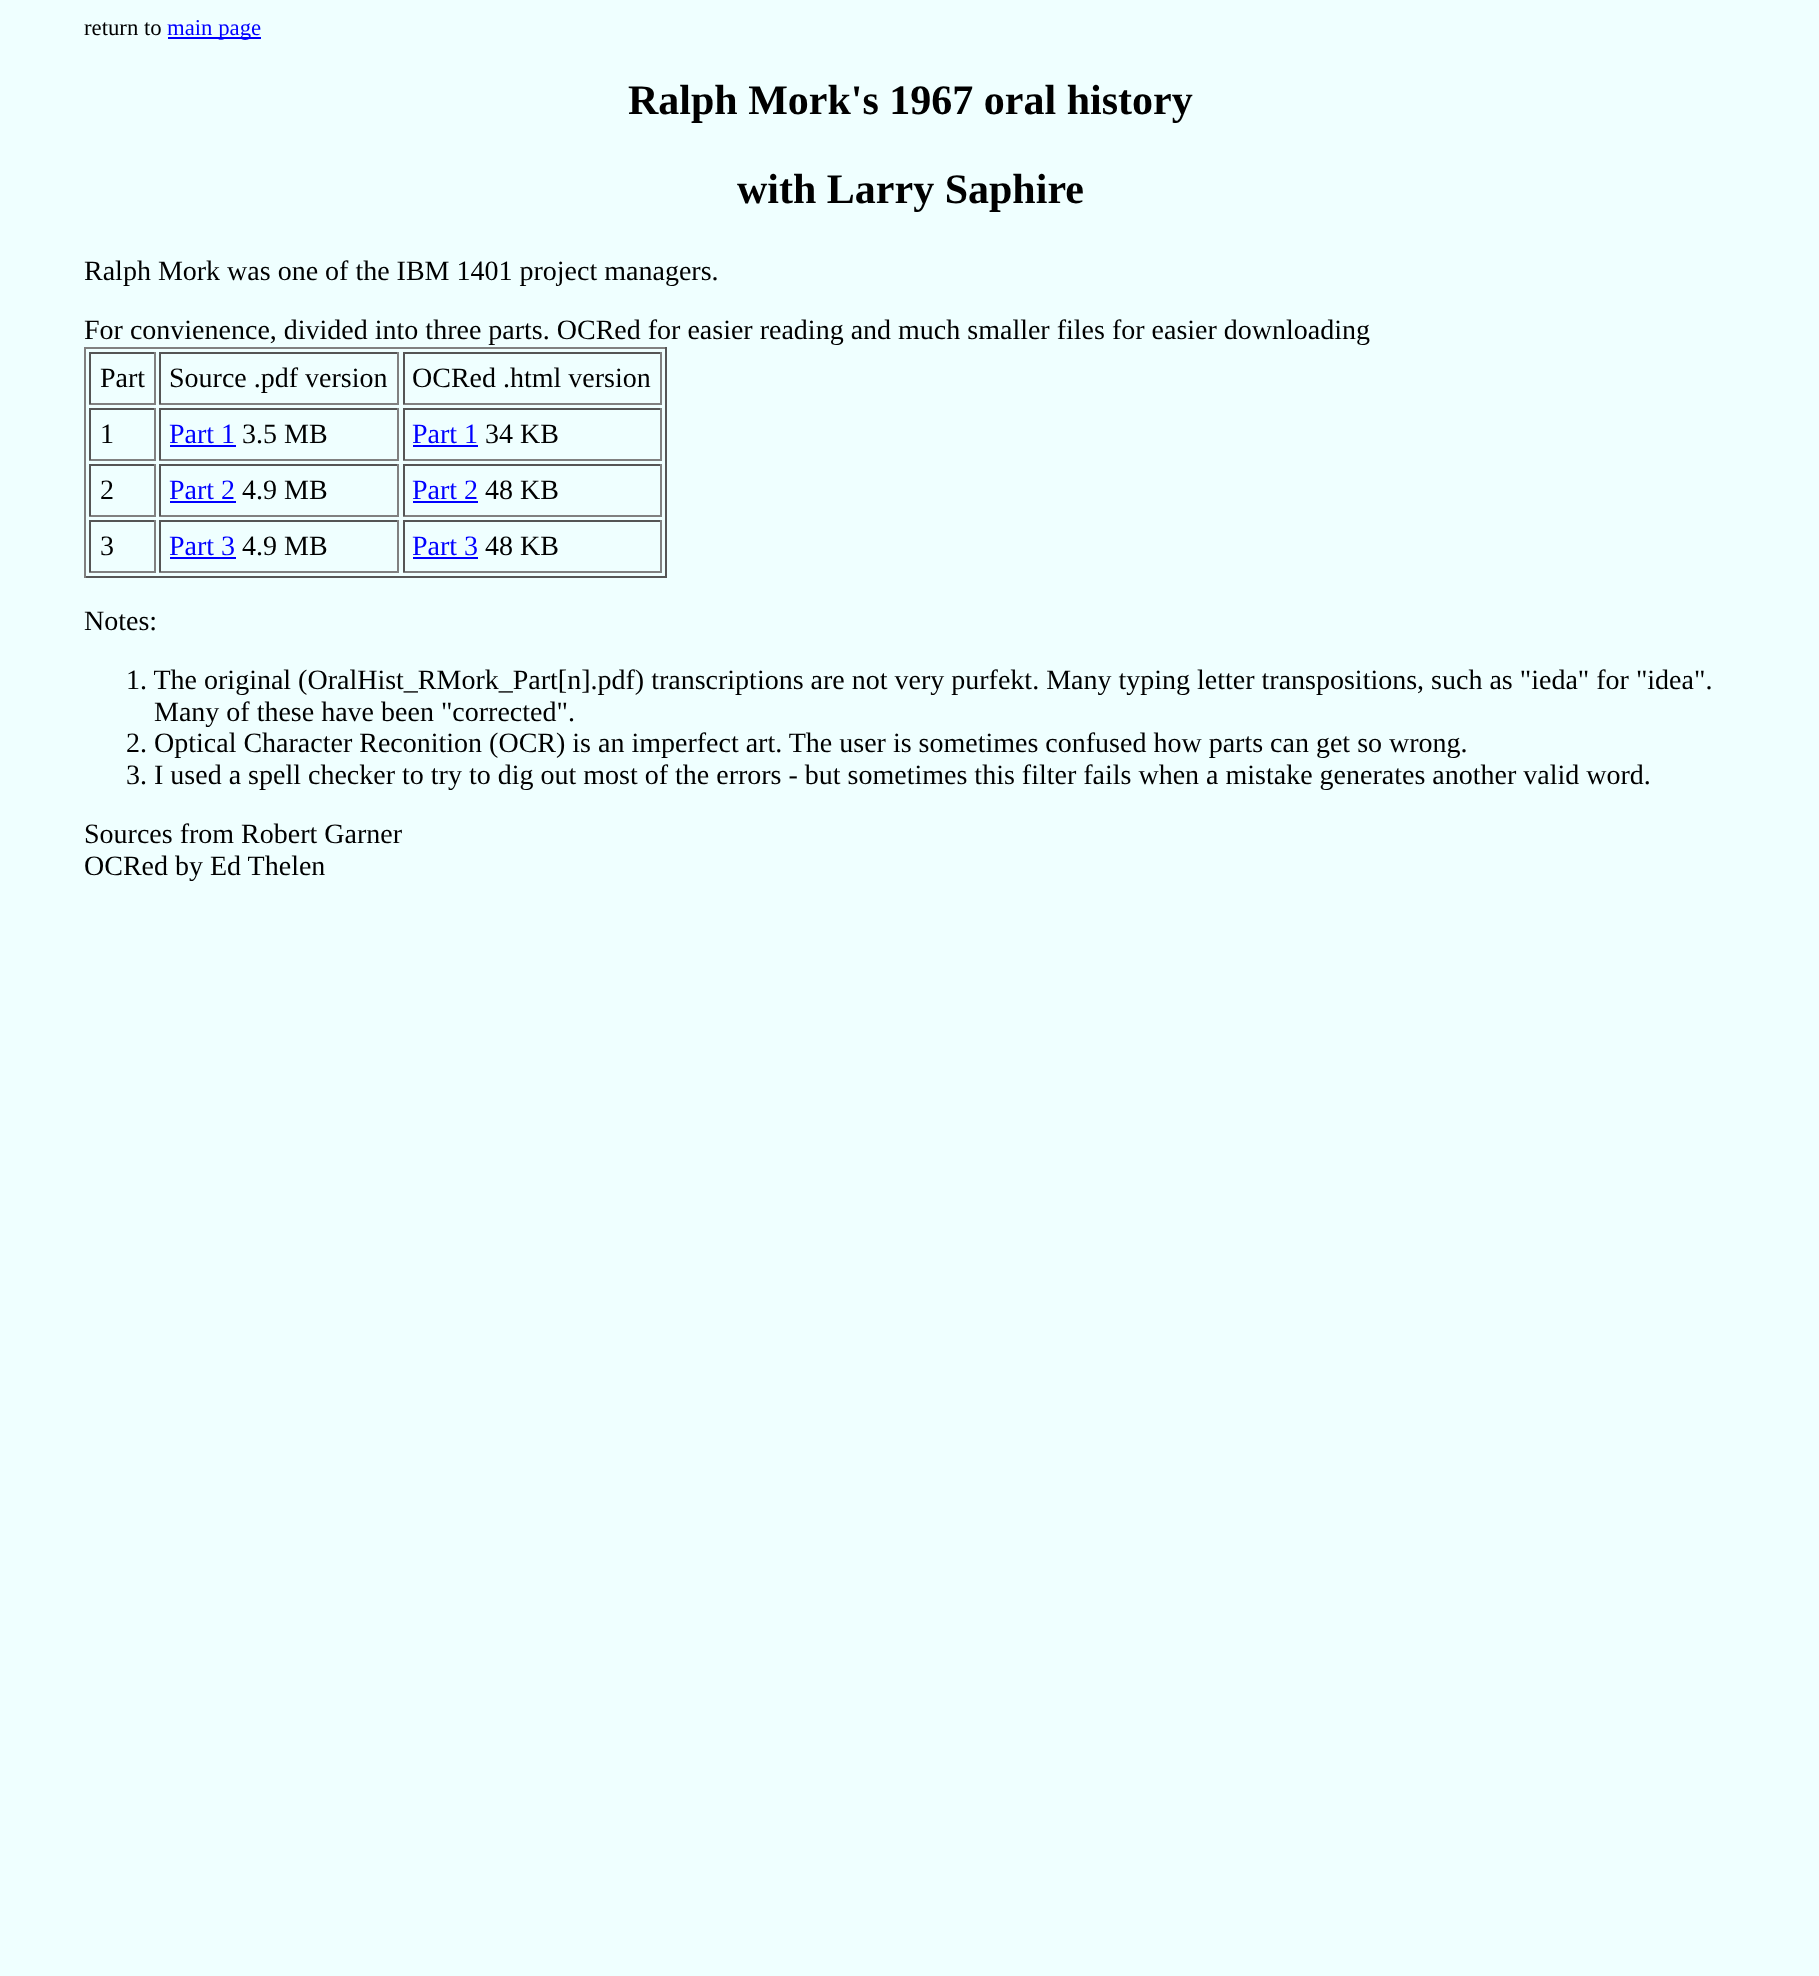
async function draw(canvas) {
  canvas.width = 1819;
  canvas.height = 1976;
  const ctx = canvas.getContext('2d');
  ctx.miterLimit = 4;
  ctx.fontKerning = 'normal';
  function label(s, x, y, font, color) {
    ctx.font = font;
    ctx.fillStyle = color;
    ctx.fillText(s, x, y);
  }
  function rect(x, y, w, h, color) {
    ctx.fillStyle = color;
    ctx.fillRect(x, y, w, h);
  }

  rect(0, 0, 1819, 1976, '#efffff');
  label('return to', 84, 35, '22.75px Liberation Serif', '#000');
  rect(168, 37, 93, 2, '#00f');
  label('main page', 167, 35, '22.75px Liberation Serif', '#00f');
  label('Ralph Mork\'s 1967 oral history', 628, 114, 'bold 42px Liberation Serif', '#000');
  label('with Larry Saphire', 737, 203, 'bold 42px Liberation Serif', '#000');
  label('Ralph Mork was one of the IBM 1401 project managers.', 84, 280, '28px Liberation Serif', '#000');
  label('For convienence, divided into three parts. OCRed for easier reading and much smaller files for easier downloading', 84, 339, '28px Liberation Serif', '#000');
  rect(84, 347, 583, 2, '#808080');
  rect(665, 347, 2, 231, '#555');
  rect(84, 576, 583, 2, '#555');
  rect(84, 347, 2, 231, '#808080');
  rect(89, 352, 67, 2, '#555');
  rect(154, 352, 2, 52, '#808080');
  rect(89, 403, 67, 2, '#808080');
  rect(89, 352, 2, 52, '#555');
  label('Part', 100, 387, '28px Liberation Serif', '#000');
  rect(159, 352, 240, 2, '#555');
  rect(397, 352, 2, 52, '#808080');
  rect(159, 403, 240, 2, '#808080');
  rect(159, 352, 2, 52, '#555');
  label('Source .pdf version', 169, 387, '28px Liberation Serif', '#000');
  rect(403, 352, 259, 2, '#555');
  rect(660, 352, 2, 52, '#808080');
  rect(403, 403, 259, 2, '#808080');
  rect(403, 352, 2, 52, '#555');
  label('OCRed .html version', 412, 387, '28px Liberation Serif', '#000');
  rect(89, 408, 67, 2, '#555');
  rect(154, 408, 2, 52, '#808080');
  rect(89, 459, 67, 2, '#808080');
  rect(89, 408, 2, 52, '#555');
  label('1', 100, 443, '28px Liberation Serif', '#000');
  rect(159, 408, 240, 2, '#555');
  rect(397, 408, 2, 52, '#808080');
  rect(159, 459, 240, 2, '#808080');
  rect(159, 408, 2, 52, '#555');
  label('Part 1', 169, 443, '28px Liberation Serif', '#00f');
  rect(170, 445, 66, 2, '#00f');
  label('3.5 MB', 242, 443, '28px Liberation Serif', '#000');
  rect(403, 408, 259, 2, '#555');
  rect(660, 408, 2, 52, '#808080');
  rect(403, 459, 259, 2, '#808080');
  rect(403, 408, 2, 52, '#555');
  label('Part 1', 412, 443, '28px Liberation Serif', '#00f');
  rect(413, 445, 65, 2, '#00f');
  label('34 KB', 485, 443, '28px Liberation Serif', '#000');
  rect(89, 464, 67, 2, '#555');
  rect(154, 464, 2, 52, '#808080');
  rect(89, 515, 67, 2, '#808080');
  rect(89, 464, 2, 52, '#555');
  label('2', 100, 499, '28px Liberation Serif', '#000');
  rect(159, 464, 240, 2, '#555');
  rect(397, 464, 2, 52, '#808080');
  rect(159, 515, 240, 2, '#808080');
  rect(159, 464, 2, 52, '#555');
  label('Part 2', 169, 499, '28px Liberation Serif', '#00f');
  rect(170, 501, 66, 2, '#00f');
  label('4.9 MB', 242, 499, '28px Liberation Serif', '#000');
  rect(403, 464, 259, 2, '#555');
  rect(660, 464, 2, 52, '#808080');
  rect(403, 515, 259, 2, '#808080');
  rect(403, 464, 2, 52, '#555');
  label('Part 2', 412, 499, '28px Liberation Serif', '#00f');
  rect(413, 501, 65, 2, '#00f');
  label('48 KB', 485, 499, '28px Liberation Serif', '#000');
  rect(89, 520, 67, 2, '#555');
  rect(154, 520, 2, 52, '#808080');
  rect(89, 571, 67, 2, '#808080');
  rect(89, 520, 2, 52, '#555');
  label('3', 100, 555, '28px Liberation Serif', '#000');
  rect(159, 520, 240, 2, '#555');
  rect(397, 520, 2, 52, '#808080');
  rect(159, 571, 240, 2, '#808080');
  rect(159, 520, 2, 52, '#555');
  label('Part 3', 169, 555, '28px Liberation Serif', '#00f');
  rect(170, 557, 66, 2, '#00f');
  label('4.9 MB', 242, 555, '28px Liberation Serif', '#000');
  rect(403, 520, 259, 2, '#555');
  rect(660, 520, 2, 52, '#808080');
  rect(403, 571, 259, 2, '#808080');
  rect(403, 520, 2, 52, '#555');
  label('Part 3', 412, 555, '28px Liberation Serif', '#00f');
  rect(413, 557, 65, 2, '#00f');
  label('48 KB', 485, 555, '28px Liberation Serif', '#000');
  label('Notes:', 84, 630, '28px Liberation Serif', '#000');
  label('1. The original (OralHist_RMork_Part[n].pdf) transcriptions are not very purfekt. Many typing letter transpositions, such as "ieda" for "idea".', 126, 689, '28px Liberation Serif', '#000');
  label('Many of these have been "corrected".', 154, 721, '28px Liberation Serif', '#000');
  label('2. Optical Character Reconition (OCR) is an imperfect art. The user is sometimes confused how parts can get so wrong.', 126, 752, '28px Liberation Serif', '#000');
  label('3. I used a spell checker to try to dig out most of the errors - but sometimes this filter fails when a mistake generates another valid word.', 126, 784, '28px Liberation Serif', '#000');
  label('Sources from Robert Garner', 84, 843, '28px Liberation Serif', '#000');
  label('OCRed by Ed Thelen', 84, 875, '28px Liberation Serif', '#000');
}

draw(document.querySelector('canvas'));
